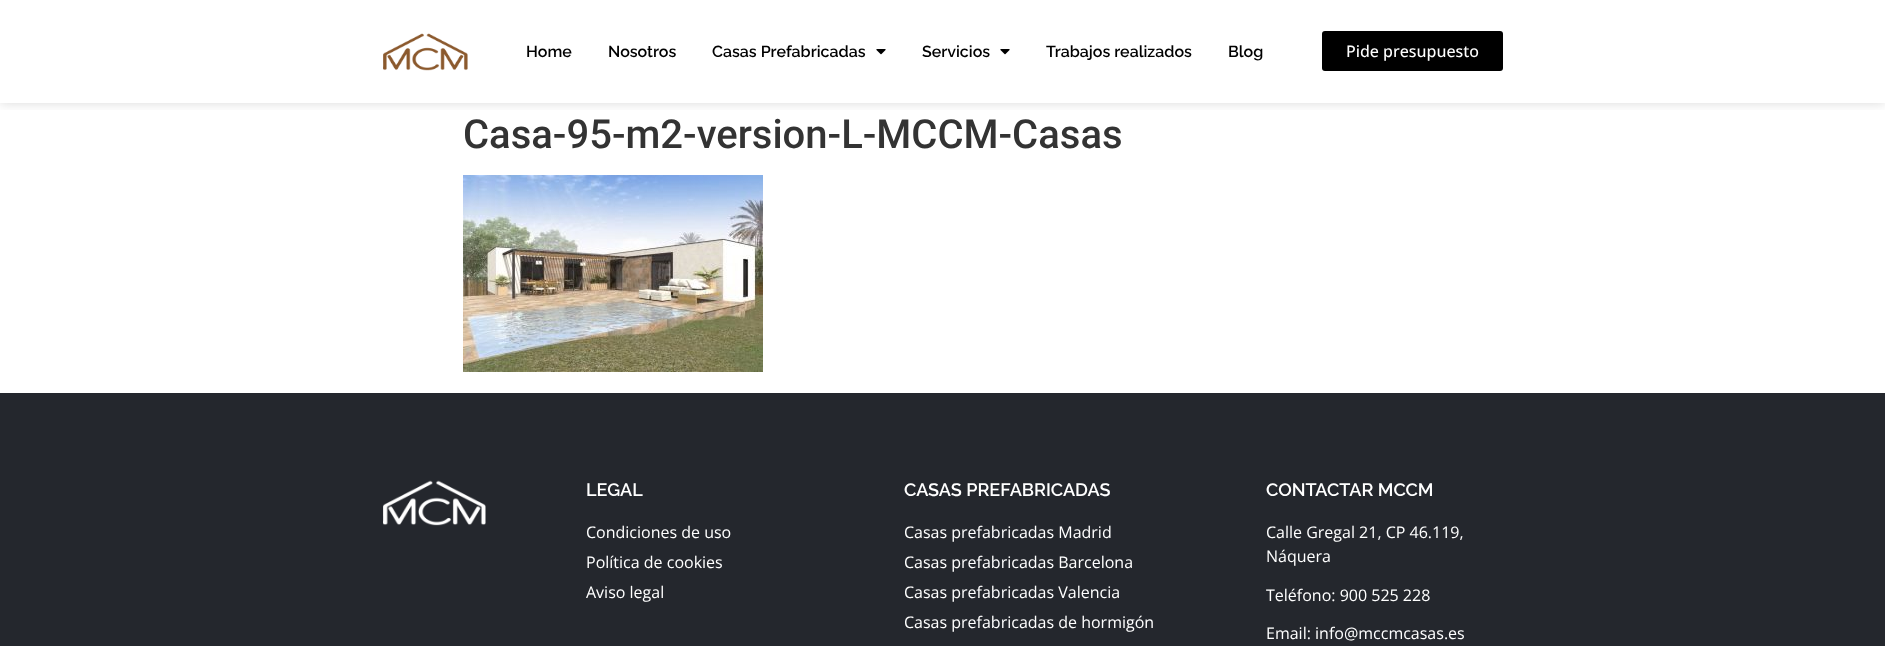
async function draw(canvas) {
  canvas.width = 1885;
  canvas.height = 646;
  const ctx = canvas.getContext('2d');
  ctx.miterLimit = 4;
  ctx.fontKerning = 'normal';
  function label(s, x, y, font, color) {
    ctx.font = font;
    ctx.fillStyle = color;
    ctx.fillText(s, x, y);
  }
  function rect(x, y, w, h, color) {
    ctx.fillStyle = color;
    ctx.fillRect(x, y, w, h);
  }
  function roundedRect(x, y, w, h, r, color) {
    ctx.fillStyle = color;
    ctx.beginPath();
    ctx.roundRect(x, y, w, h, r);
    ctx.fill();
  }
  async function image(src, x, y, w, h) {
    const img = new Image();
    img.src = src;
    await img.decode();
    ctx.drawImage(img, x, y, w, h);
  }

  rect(0, 0, 1885, 646, '#fff');
  ctx.save();
  ctx.beginPath();
  ctx.rect(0, 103, 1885, 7);
  ctx.clip();
  ctx.fillStyle = '#00000026';
  ctx.filter = 'blur(6px)';
  ctx.beginPath();
  ctx.rect(0, 0, 1885, 103);
  ctx.fill();
  ctx.filter = 'none';
  ctx.restore();
  await image('assets/img1.png', 383, 33, 85, 38);
  label('Home', 526, 57, '600 16px Raleway', '#000');
  label('Nosotros', 608, 57, '600 16px Raleway', '#000');
  label('Casas Prefabricadas', 712, 57, '600 16px Raleway', '#000');
  await image('assets/img2.png', 876, 49, 10, 6);
  label('Servicios', 922, 57, '600 16px Raleway', '#000');
  await image('assets/img2.png', 1000, 49, 10, 6);
  label('Trabajos realizados', 1046, 57, '600 16px Raleway', '#000');
  label('Blog', 1228, 57, '600 16px Raleway', '#000');
  roundedRect(1322, 31, 181, 40, 3, '#000');
  label('Pide presupuesto', 1346, 57, '500 16px Open Sans', '#fff');
  label('Casa-95-m2-version-L-MCCM-Casas', 463, 148, '500 40px Roboto', '#333');
  await image('assets/img3.png', 463, 175, 300, 197);
  rect(0, 393, 1885, 253, '#24272d');
  await image('assets/img4.png', 383, 480, 103, 46);
  label('LEGAL', 586, 496, '600 18px Raleway', '#fff');
  label('Condiciones de uso', 586, 538, '16px Open Sans', '#fff');
  label('Política de cookies', 586, 568, '16px Open Sans', '#fff');
  label('Aviso legal', 586, 598, '16px Open Sans', '#fff');
  label('CASAS PREFABRICADAS', 904, 496, '600 18px Raleway', '#fff');
  label('Casas prefabricadas Madrid', 904, 538, '16px Open Sans', '#fff');
  label('Casas prefabricadas Barcelona', 904, 568, '16px Open Sans', '#fff');
  label('Casas prefabricadas Valencia', 904, 598, '16px Open Sans', '#fff');
  label('Casas prefabricadas de hormigón', 904, 628, '16px Open Sans', '#fff');
  label('CONTACTAR MCCM', 1266, 496, '600 18px Raleway', '#fff');
  label('Calle Gregal 21, CP 46.119,', 1266, 538, '16px Open Sans', '#fff');
  label('Náquera', 1266, 562, '16px Open Sans', '#fff');
  label('Teléfono: 900 525 228', 1266, 601, '16px Open Sans', '#fff');
  label('Email: info@mccmcasas.es', 1266, 639, '16px Open Sans', '#fff');
}

draw(document.querySelector('canvas'));
